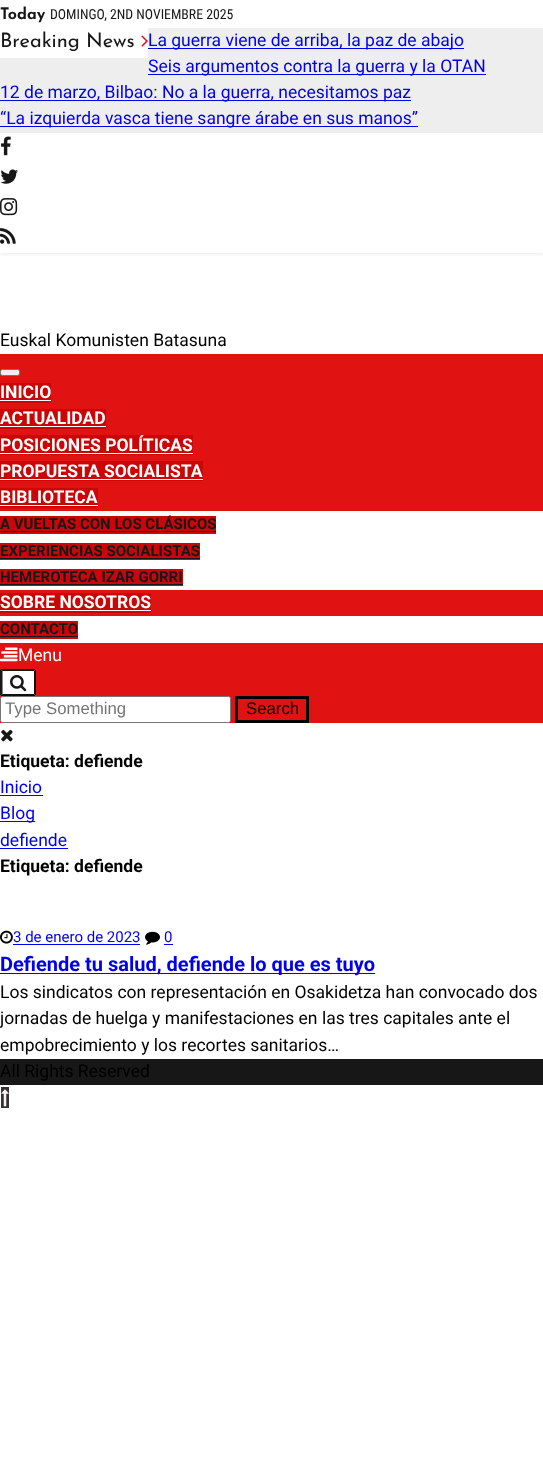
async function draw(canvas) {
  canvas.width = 543;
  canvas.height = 1480;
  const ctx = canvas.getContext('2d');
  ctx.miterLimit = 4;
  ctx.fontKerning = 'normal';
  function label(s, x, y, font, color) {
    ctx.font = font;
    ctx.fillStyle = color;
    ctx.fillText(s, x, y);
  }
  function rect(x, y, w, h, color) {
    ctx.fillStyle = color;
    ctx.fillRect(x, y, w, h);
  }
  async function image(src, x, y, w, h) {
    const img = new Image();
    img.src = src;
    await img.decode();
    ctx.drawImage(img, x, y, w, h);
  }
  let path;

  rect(0, 0, 543, 1480, '#fff');
  ctx.fillStyle = '#f1f1f1';
  ctx.filter = 'blur(1px)';
  ctx.beginPath();
  ctx.rect(0, 3, 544, 252);
  ctx.fill();
  ctx.filter = 'none';
  rect(0, 2, 543, 251, '#fff');
  label('Today', 0, 19, 'bold 16px Josefin Sans', '#171717');
  label('DOMINGO, 2ND NOVIEMBRE 2025', 50, 19, '13.75px Roboto Condensed', '#171717');
  rect(0, 28, 543, 105, '#eee');
  rect(0, 28, 148, 30, '#fff');
  label('Breaking News', 0, 47, '20px Josefin Sans', '#171717');
  await image('assets/img1.png', 141, 35, 7, 12);
  rect(148, 48, 316, 1, '#00e');
  label('La guerra viene de arriba, la paz de abajo', 148, 46, '17.5px Roboto', '#00e');
  rect(148, 74, 338, 1, '#00e');
  label('Seis argumentos contra la guerra y la OTAN', 148, 72, '17.5px Roboto', '#00e');
  rect(0, 100, 411, 1, '#00e');
  label('12 de marzo, Bilbao: No a la guerra, necesitamos paz', 0, 98, '17.5px Roboto', '#00e');
  rect(0, 126, 418, 1, '#00e');
  label('“La izquierda vasca tiene sangre árabe en sus manos”', 0, 124, '17.5px Roboto', '#00e');
  await image('assets/img2.png', 1, 136, 10, 20);
  await image('assets/img3.png', 0, 169, 18, 15);
  await image('assets/img4.png', 0, 198, 18, 18);
  await image('assets/img5.png', 0, 228, 16, 16);
  label('Euskal Komunisten Batasuna', 0, 346, '17.5px Roboto', '#000');
  rect(0, 354, 543, 369, '#e01212');
  ctx.fillStyle = '#efefef';
  ctx.beginPath();
  ctx.roundRect(0.5, 369.5, 19, 6, 2);
  ctx.fill();
  ctx.strokeStyle = '#767676';
  ctx.stroke();
  rect(0, 383, 51, 20, '#ca0606');
  label('INICIO', 0, 398, 'bold 17.5px Roboto', '#fff');
  rect(0, 400, 51, 1, '#fff');
  rect(0, 409, 106, 20, '#ca0606');
  label('ACTUALIDAD', 0, 424, 'bold 17.5px Roboto', '#fff');
  rect(0, 426, 106, 1, '#fff');
  rect(0, 435, 193, 20, '#ca0606');
  label('POSICIONES POLÍTICAS', 0, 451, 'bold 17.5px Roboto', '#fff');
  rect(0, 453, 193, 1, '#fff');
  rect(0, 461, 203, 20, '#ca0606');
  label('PROPUESTA SOCIALISTA', 0, 477, 'bold 17.5px Roboto', '#fff');
  rect(0, 479, 203, 1, '#fff');
  rect(0, 488, 98, 20, '#ca0606');
  label('BIBLIOTECA', 0, 503, 'bold 17.5px Roboto', '#fff');
  rect(0, 505, 98, 1, '#fff');
  rect(0, 511, 543, 79, '#fff');
  rect(0, 516, 216, 18, '#ca0606');
  label('A VUELTAS CON LOS CLÁSICOS', 0, 529, 'bold 15px Roboto', '#171717');
  rect(0, 531, 216, 1, '#171717');
  rect(0, 543, 200, 17, '#ca0606');
  label('EXPERIENCIAS SOCIALISTAS', 0, 556, 'bold 15px Roboto', '#171717');
  rect(0, 558, 200, 1, '#171717');
  rect(0, 569, 183, 17, '#ca0606');
  label('HEMEROTECA IZAR GORRI', 0, 582, 'bold 15px Roboto', '#171717');
  rect(0, 584, 183, 1, '#171717');
  rect(0, 593, 151, 20, '#ca0606');
  label('SOBRE NOSOTROS', 0, 608, 'bold 17.5px Roboto', '#fff');
  rect(0, 610, 151, 1, '#fff');
  rect(0, 616, 543, 27, '#fff');
  rect(0, 621, 78, 18, '#ca0606');
  label('CONTACTO', 0, 634, 'bold 15px Roboto', '#171717');
  rect(0, 636, 78, 1, '#171717');
  await image('assets/img6.png', 0, 647, 18, 15);
  label('Menu', 18, 661, '17.5px Roboto', '#fff');
  rect(0, 669, 36, 27, '#fff');
  ctx.fillStyle = '#171717';
  path = new Path2D('M0 669H36L34 671H2.5Z');
  ctx.fill(path);
  ctx.fillStyle = '#0f0f0f';
  path = new Path2D('M36 669V696L34 694V671Z');
  ctx.fill(path);
  path = new Path2D('M36 696H0L2.5 694H34Z');
  ctx.fill(path);
  ctx.fillStyle = '#171717';
  path = new Path2D('M0 696V669L2.5 671V694Z');
  ctx.fill(path);
  await image('assets/img7.png', 10, 675, 17, 17);
  ctx.fillStyle = '#fff';
  ctx.beginPath();
  ctx.roundRect(0.5, 696.5, 230, 26, 2);
  ctx.fill();
  ctx.stroke();
  label('Type Something', 5, 714, '16.75px Liberation Sans', '#757575');
  ctx.strokeStyle = '#000';
  ctx.lineWidth = 3;
  ctx.strokeRect(236.5, 697.5, 71, 24);
  label('Search', 246, 714, '16.75px Liberation Sans', '#000');
  await image('assets/img8.png', 1, 729, 12, 13);
  label('Etiqueta: defiende', 0, 767, 'bold 17.5px Roboto', '#000');
  label('Inicio', 0, 793, '17.5px Roboto', '#00e');
  rect(0, 795, 43, 1, '#00e');
  rect(0, 821, 35, 1, '#00e');
  label('Blog', 0, 819, '17.5px Roboto', '#00e');
  label('defiende', 0, 846, '17.5px Roboto', '#00e');
  rect(0, 848, 68, 1, '#00e');
  label('Etiqueta: defiende', 0, 872, 'bold 17.5px Roboto', '#000');
  await image('assets/img9.png', 0, 930, 13, 14);
  label('3 de enero de 2023', 13, 942, '15px Roboto', '#00e');
  rect(13, 944, 127, 1, '#00e');
  await image('assets/img10.png', 145, 931, 15, 14);
  label('0', 164, 942, '15px Roboto', '#00e');
  rect(164, 944, 9, 1, '#00e');
  rect(0, 973, 375, 1, '#00e');
  label('Defiende tu salud, defiende lo que es tuyo', 0, 971, 'bold 20px Roboto', '#00e');
  label('Los sindicatos con representación en Osakidetza han convocado dos', 0, 998, '17.5px Roboto', '#000');
  label('jornadas de huelga y manifestaciones en las tres capitales ante el', 0, 1024, '17.5px Roboto', '#000');
  label('empobrecimiento y los recortes sanitarios…', 0, 1051, '17.5px Roboto', '#000');
  rect(0, 1059, 543, 26, '#171717');
  label('All Rights Reserved', 0, 1077, '17.5px Roboto', '#000');
  rect(1, 1087, 8, 21, '#333');
  await image('assets/img11.png', 1, 1089, 8, 18);
}

draw(document.querySelector('canvas'));
